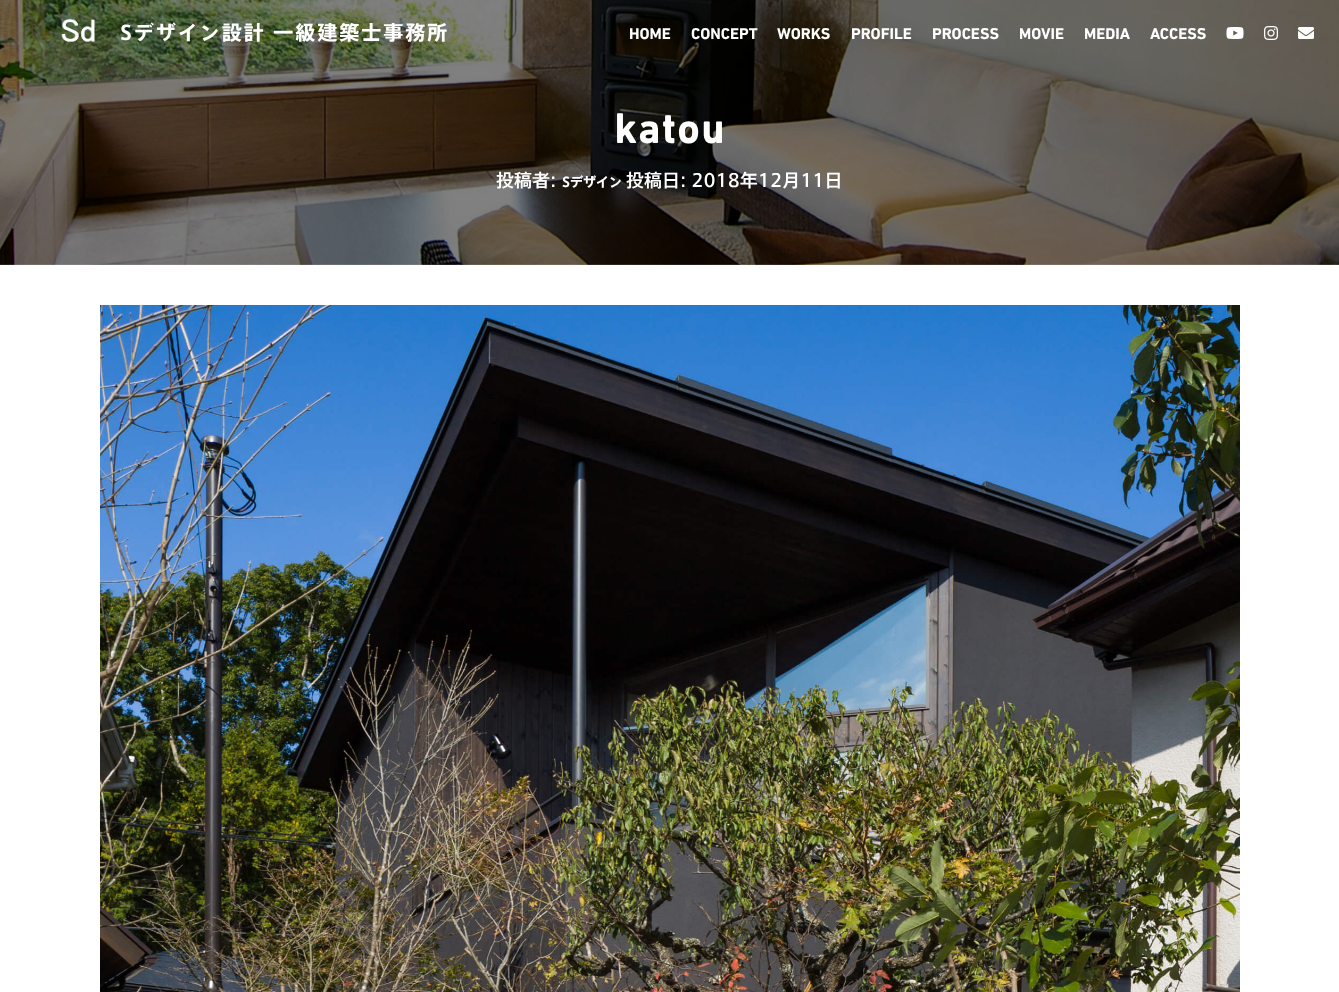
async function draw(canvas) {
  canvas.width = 1339;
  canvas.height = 992;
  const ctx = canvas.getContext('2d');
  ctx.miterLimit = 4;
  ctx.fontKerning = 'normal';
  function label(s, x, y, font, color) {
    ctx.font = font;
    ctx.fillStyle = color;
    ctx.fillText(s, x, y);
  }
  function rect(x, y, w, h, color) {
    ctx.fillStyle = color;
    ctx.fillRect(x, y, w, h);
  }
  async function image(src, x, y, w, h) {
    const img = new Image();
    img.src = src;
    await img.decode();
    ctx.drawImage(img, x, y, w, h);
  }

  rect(0, 0, 1339, 992, '#fff');
  await image('assets/img5.png', 0, 0, 1339, 265);
  await image('assets/img1.png', 61, 18, 34, 24);
  ctx.letterSpacing = '2px';
  label('Sデザイン設計 一級建築士事務所', 120, 40, 'bold 20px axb', '#fff');
  ctx.letterSpacing = '0px';
  label('HOME', 629, 39, 'bold 16px "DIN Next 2"', '#fff');
  label('CONCEPT', 691, 39, 'bold 16px "DIN Next 2"', '#fff');
  label('WORKS', 777, 39, 'bold 16px "DIN Next 2"', '#fff');
  label('PROFILE', 851, 39, 'bold 16px "DIN Next 2"', '#fff');
  label('PROCESS', 932, 39, 'bold 16px "DIN Next 2"', '#fff');
  label('MOVIE', 1019, 39, 'bold 16px "DIN Next 2"', '#fff');
  label('MEDIA', 1084, 39, 'bold 16px "DIN Next 2"', '#fff');
  label('ACCESS', 1150, 39, 'bold 16px "DIN Next 2"', '#fff');
  await image('assets/img2.png', 1226, 27, 18, 12);
  await image('assets/img3.png', 1264, 26, 14, 14);
  await image('assets/img4.png', 1298, 27, 16, 12);
  ctx.letterSpacing = '2px';
  label('katou', 614, 143, 'bold 42px DIN Next', '#fff');
  ctx.letterSpacing = '0px';
  label('投稿者:', 496, 187, '500 18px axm', '#fff');
  label('Sデザイン', 562, 187, 'bold 13px axm', '#fff');
  label('投稿日: 2018年12月11日', 626, 187, '500 18px axm', '#fff');
  await image('assets/img6.png', 100, 305, 1140, 687);
}

draw(document.querySelector('canvas'));
